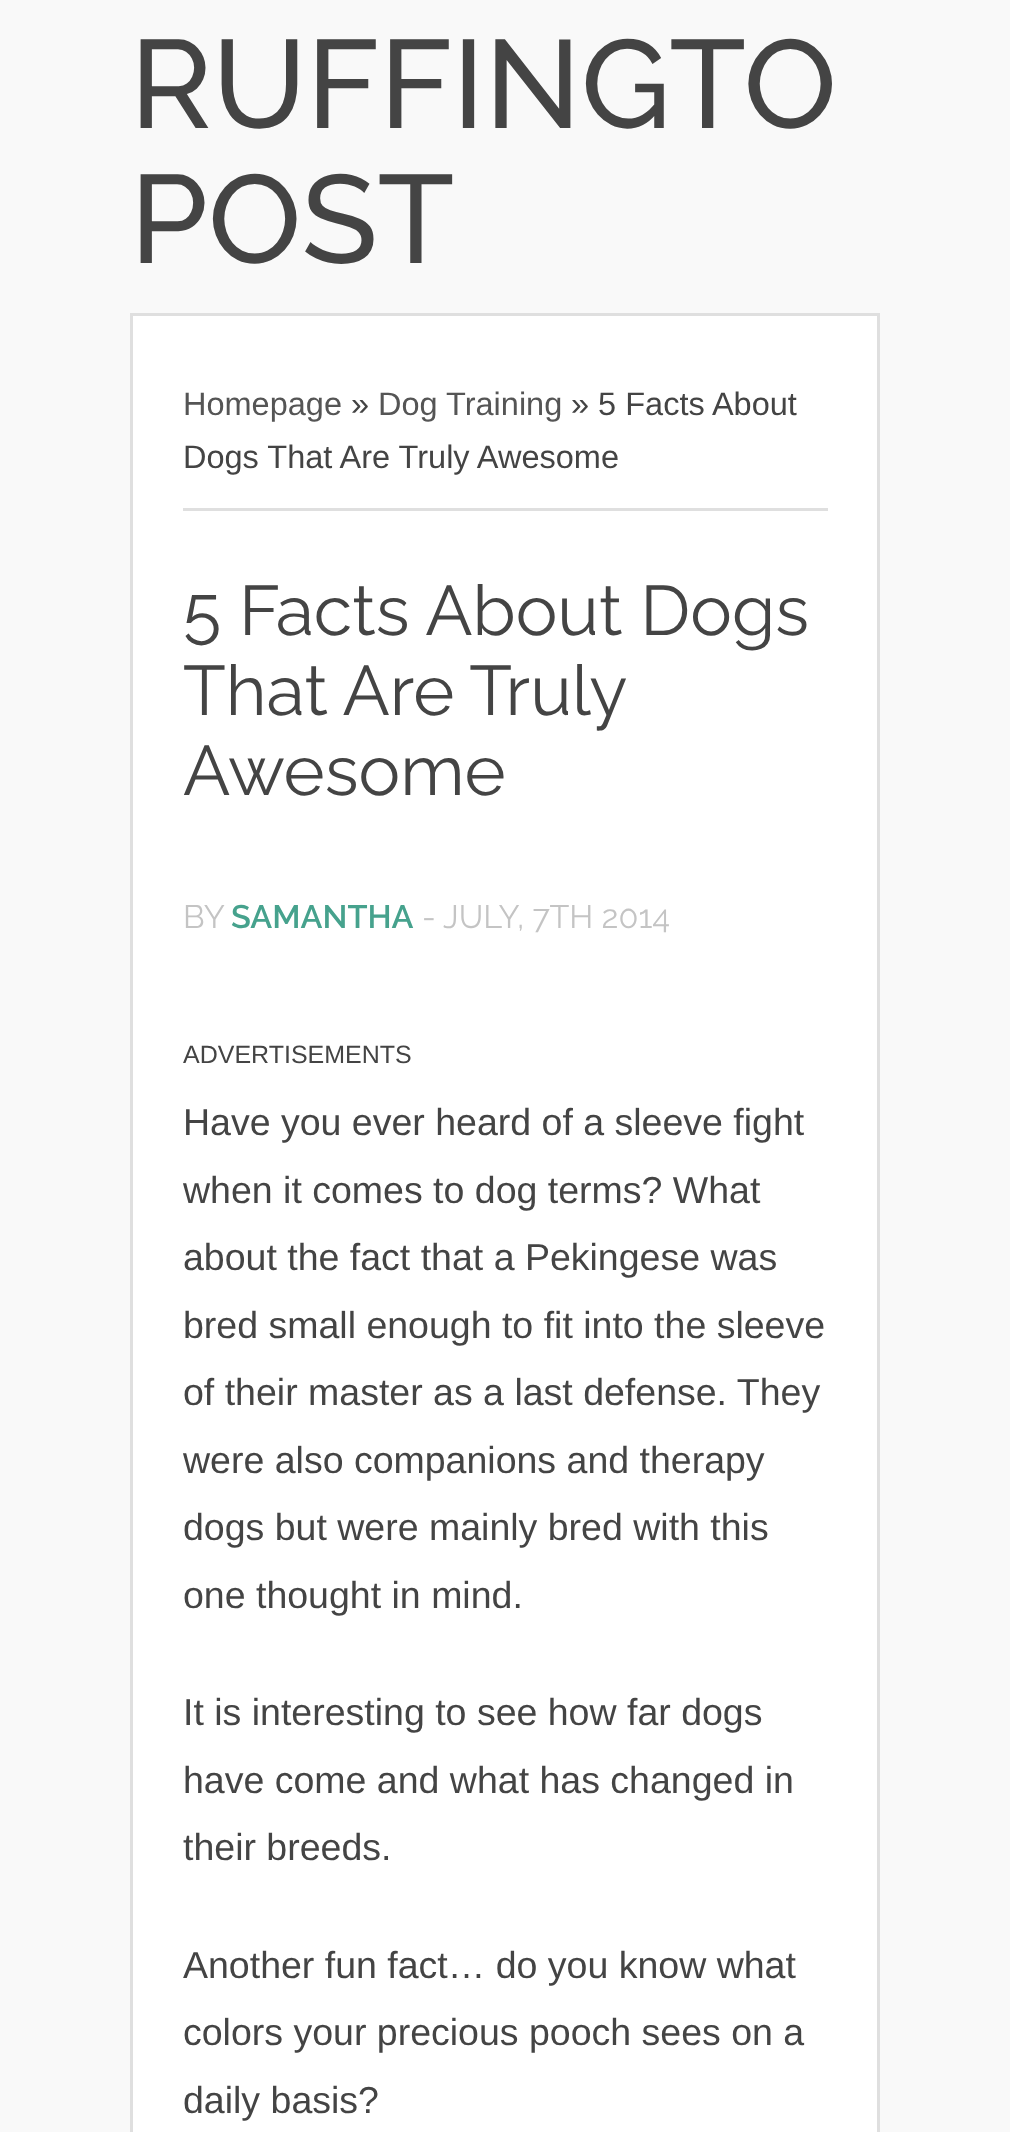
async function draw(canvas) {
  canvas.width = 1010;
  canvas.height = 2132;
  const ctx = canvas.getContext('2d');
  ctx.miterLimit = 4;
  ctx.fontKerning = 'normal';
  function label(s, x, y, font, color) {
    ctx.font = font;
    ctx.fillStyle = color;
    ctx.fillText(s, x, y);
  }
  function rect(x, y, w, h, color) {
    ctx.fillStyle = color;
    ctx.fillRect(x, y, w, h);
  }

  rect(0, 0, 1010, 2132, '#f9f9f9');
  label('RUFFINGTO', 130, 128, '500 125px Raleway', '#444');
  label('POST', 130, 263, '500 125px Raleway', '#444');
  ctx.fillStyle = '#fff';
  ctx.beginPath();
  ctx.rect(131.5, 314.5, 747, 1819);
  ctx.fill();
  ctx.strokeStyle = '#dfdfdf';
  ctx.lineWidth = 3;
  ctx.stroke();
  rect(183, 508, 645, 3, '#dfdfdf');
  label('Homepage', 183, 415, '32.5px Liberation Sans', '#555');
  label('»', 351, 415, '32.5px Liberation Sans', '#444');
  label('Dog Training', 378, 415, '32.5px Liberation Sans', '#555');
  label('» 5 Facts About', 571, 415, '32.5px Liberation Sans', '#444');
  label('Dogs That Are Truly Awesome', 183, 468, '32.5px Liberation Sans', '#444');
  label('5 Facts About Dogs', 183, 635, '70px Raleway', '#444');
  ctx.wordSpacing = '-1px';
  label('That Are Truly', 183, 715, '70px Raleway', '#444');
  ctx.wordSpacing = '0px';
  label('Awesome', 183, 795, '70px Raleway', '#444');
  label('BY', 183, 928, '32.5px Raleway', '#c4c4c4');
  label('SAMANTHA', 231, 928, '600 32.5px Raleway', '#46a28d');
  label('-', 422, 928, '32.5px Raleway', '#c4c4c4');
  label('JULY, 7TH 2014', 443, 928, '32.5px Raleway', '#c4c4c4');
  label('ADVERTISEMENTS', 183, 1063, '25px Liberation Sans', '#444');
  label('Have you ever heard of a sleeve fight', 183, 1135, '37.5px Liberation Sans', '#444');
  label('when it comes to dog terms? What', 183, 1203, '37.5px Liberation Sans', '#444');
  label('about the fact that a Pekingese was', 183, 1270, '37.5px Liberation Sans', '#444');
  label('bred small enough to fit into the sleeve', 183, 1338, '37.5px Liberation Sans', '#444');
  label('of their master as a last defense. They', 183, 1405, '37.5px Liberation Sans', '#444');
  label('were also companions and therapy', 183, 1473, '37.5px Liberation Sans', '#444');
  label('dogs but were mainly bred with this', 183, 1540, '37.5px Liberation Sans', '#444');
  label('one thought in mind.', 183, 1608, '37.5px Liberation Sans', '#444');
  label('It is interesting to see how far dogs', 183, 1725, '37.5px Liberation Sans', '#444');
  label('have come and what has changed in', 183, 1793, '37.5px Liberation Sans', '#444');
  label('their breeds.', 183, 1860, '37.5px Liberation Sans', '#444');
  label('Another fun fact… do you know what', 183, 1978, '37.5px Liberation Sans', '#444');
  label('colors your precious pooch sees on a', 183, 2045, '37.5px Liberation Sans', '#444');
  label('daily basis?', 183, 2113, '37.5px Liberation Sans', '#444');
}

draw(document.querySelector('canvas'));
